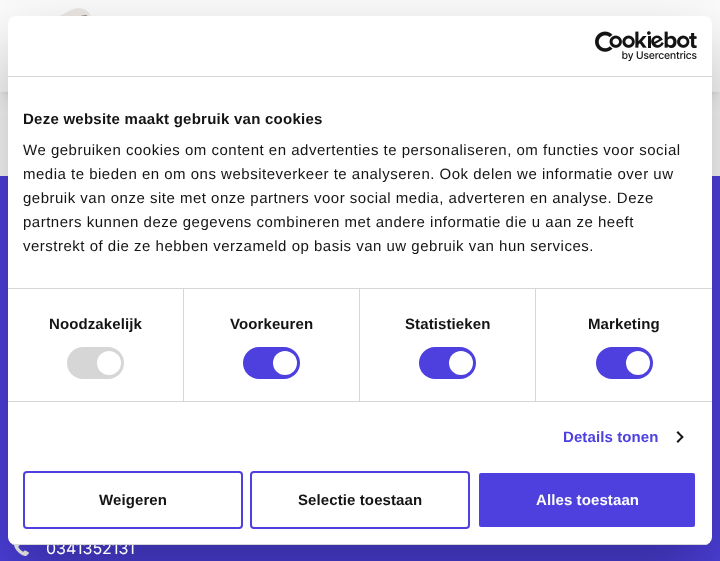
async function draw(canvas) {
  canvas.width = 720;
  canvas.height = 561;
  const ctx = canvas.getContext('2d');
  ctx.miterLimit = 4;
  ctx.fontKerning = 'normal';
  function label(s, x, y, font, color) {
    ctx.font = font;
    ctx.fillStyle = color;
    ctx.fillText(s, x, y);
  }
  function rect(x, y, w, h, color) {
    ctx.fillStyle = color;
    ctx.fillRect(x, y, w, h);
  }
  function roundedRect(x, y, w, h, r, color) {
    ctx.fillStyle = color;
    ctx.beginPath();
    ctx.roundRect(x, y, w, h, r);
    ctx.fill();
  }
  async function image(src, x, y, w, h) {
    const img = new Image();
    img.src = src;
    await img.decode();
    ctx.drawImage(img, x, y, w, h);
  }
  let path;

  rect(0, 0, 720, 561, '#fcfcfc');
  ctx.fillStyle = '#0000001a';
  ctx.filter = 'blur(3px)';
  ctx.beginPath();
  ctx.rect(4, 8, 712, 84);
  ctx.fill();
  ctx.filter = 'none';
  ctx.filter = 'blur(7.5px)';
  ctx.beginPath();
  ctx.rect(3, 13, 714, 86);
  ctx.fill();
  ctx.filter = 'none';
  rect(0, 2, 720, 90, '#fcfcfc');
  await image('assets/img1.png', 59, 8, 32, 8);
  rect(0, 176, 720, 385, '#4d40df');
  await image('assets/img3.png', 14, 544, 15, 12);
  ctx.fillStyle = '#0000004d';
  ctx.filter = 'blur(34px)';
  ctx.beginPath();
  ctx.roundRect(8, 48, 704, 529, 8);
  ctx.fill();
  ctx.filter = 'none';
  label('0341352131', 46, 554, '16px Inter', '#fcfcfc');
  roundedRect(8, 16, 704, 529, 8, '#fff');
  rect(8, 76, 704, 1, '#d6d6d6');
  await image('assets/img2.png', 595, 31, 102, 30);
  rect(8, 288, 704, 1, '#d6d6d6');
  ctx.letterSpacing = '0.25px';
  label('Deze website maakt gebruik van cookies', 23, 124, 'bold 15px Liberation Sans', '#141414');
  ctx.letterSpacing = '0.5px';
  label('We gebruiken cookies om content en advertenties te personaliseren, om functies voor social', 23, 155, '15px Liberation Sans', '#141414');
  label('media te bieden en om ons websiteverkeer te analyseren. Ook delen we informatie over uw', 23, 179, '15px Liberation Sans', '#141414');
  label('gebruik van onze site met onze partners voor social media, adverteren en analyse. Deze', 23, 203, '15px Liberation Sans', '#141414');
  label('partners kunnen deze gegevens combineren met andere informatie die u aan ze heeft', 23, 227, '15px Liberation Sans', '#141414');
  label('verstrekt of die ze hebben verzameld op basis van uw gebruik van hun services.', 23, 251, '15px Liberation Sans', '#141414');
  rect(8, 401, 704, 1, '#d6d6d6');
  rect(183, 289, 1, 112, '#d6d6d6');
  ctx.letterSpacing = '0.1px';
  label('Noodzakelijk', 49, 329, 'bold 15px Liberation Sans', '#141414');
  roundedRect(67, 347, 57, 32, 16, '#d6d6d6');
  ctx.fillStyle = '#fff';
  ctx.beginPath();
  ctx.arc(109, 363, 12, 0, 2 * Math.PI);
  ctx.fill();
  rect(359, 289, 1, 112, '#d6d6d6');
  label('Voorkeuren', 230, 329, 'bold 15px Liberation Sans', '#141414');
  roundedRect(243, 347, 57, 32, 16, '#4d40df');
  ctx.fillStyle = '#fff';
  ctx.beginPath();
  ctx.arc(285, 363, 12, 0, 2 * Math.PI);
  ctx.fill();
  rect(535, 289, 1, 112, '#d6d6d6');
  label('Statistieken', 405, 329, 'bold 15px Liberation Sans', '#141414');
  roundedRect(419, 347, 57, 32, 16, '#4d40df');
  ctx.fillStyle = '#fff';
  ctx.beginPath();
  ctx.arc(461, 363, 12, 0, 2 * Math.PI);
  ctx.fill();
  label('Marketing', 588, 329, 'bold 15px Liberation Sans', '#141414');
  roundedRect(596, 347, 57, 32, 16, '#4d40df');
  ctx.fillStyle = '#fff';
  ctx.beginPath();
  ctx.arc(638, 363, 12, 0, 2 * Math.PI);
  ctx.fill();
  label('Details tonen', 563, 442, 'bold 15px Liberation Sans', '#4d40df');
  ctx.fillStyle = '#141414';
  path = new Path2D('M678 431L683.5 437L682.5 438.5L676.5 432.5Z');
  ctx.fill(path);
  path = new Path2D('M682.5 435.5L683.5 437L678 443L676.5 441.5Z');
  ctx.fill(path);
  ctx.save();
  ctx.beginPath();
  ctx.roundRect(8, 16, 704, 529, 8);
  ctx.clip();
  rect(8, 544, 704, 1, '#d6d6d6');
  ctx.restore();
  ctx.beginPath();
  ctx.roundRect(24, 472, 218, 56, 3);
  ctx.strokeStyle = '#4d40df';
  ctx.lineWidth = 2;
  ctx.stroke();
  label('Weigeren', 99, 505, 'bold 15px Liberation Sans', '#141414');
  ctx.beginPath();
  ctx.roundRect(251, 472, 218, 56, 3);
  ctx.stroke();
  label('Selectie toestaan', 298, 505, 'bold 15px Liberation Sans', '#141414');
  ctx.fillStyle = '#4d40df';
  ctx.beginPath();
  ctx.roundRect(478, 472, 218, 56, 3);
  ctx.fill();
  ctx.strokeStyle = '#fff';
  ctx.stroke();
  label('Alles toestaan', 536, 505, 'bold 15px Liberation Sans', '#fcfcfc');
}

draw(document.querySelector('canvas'));
